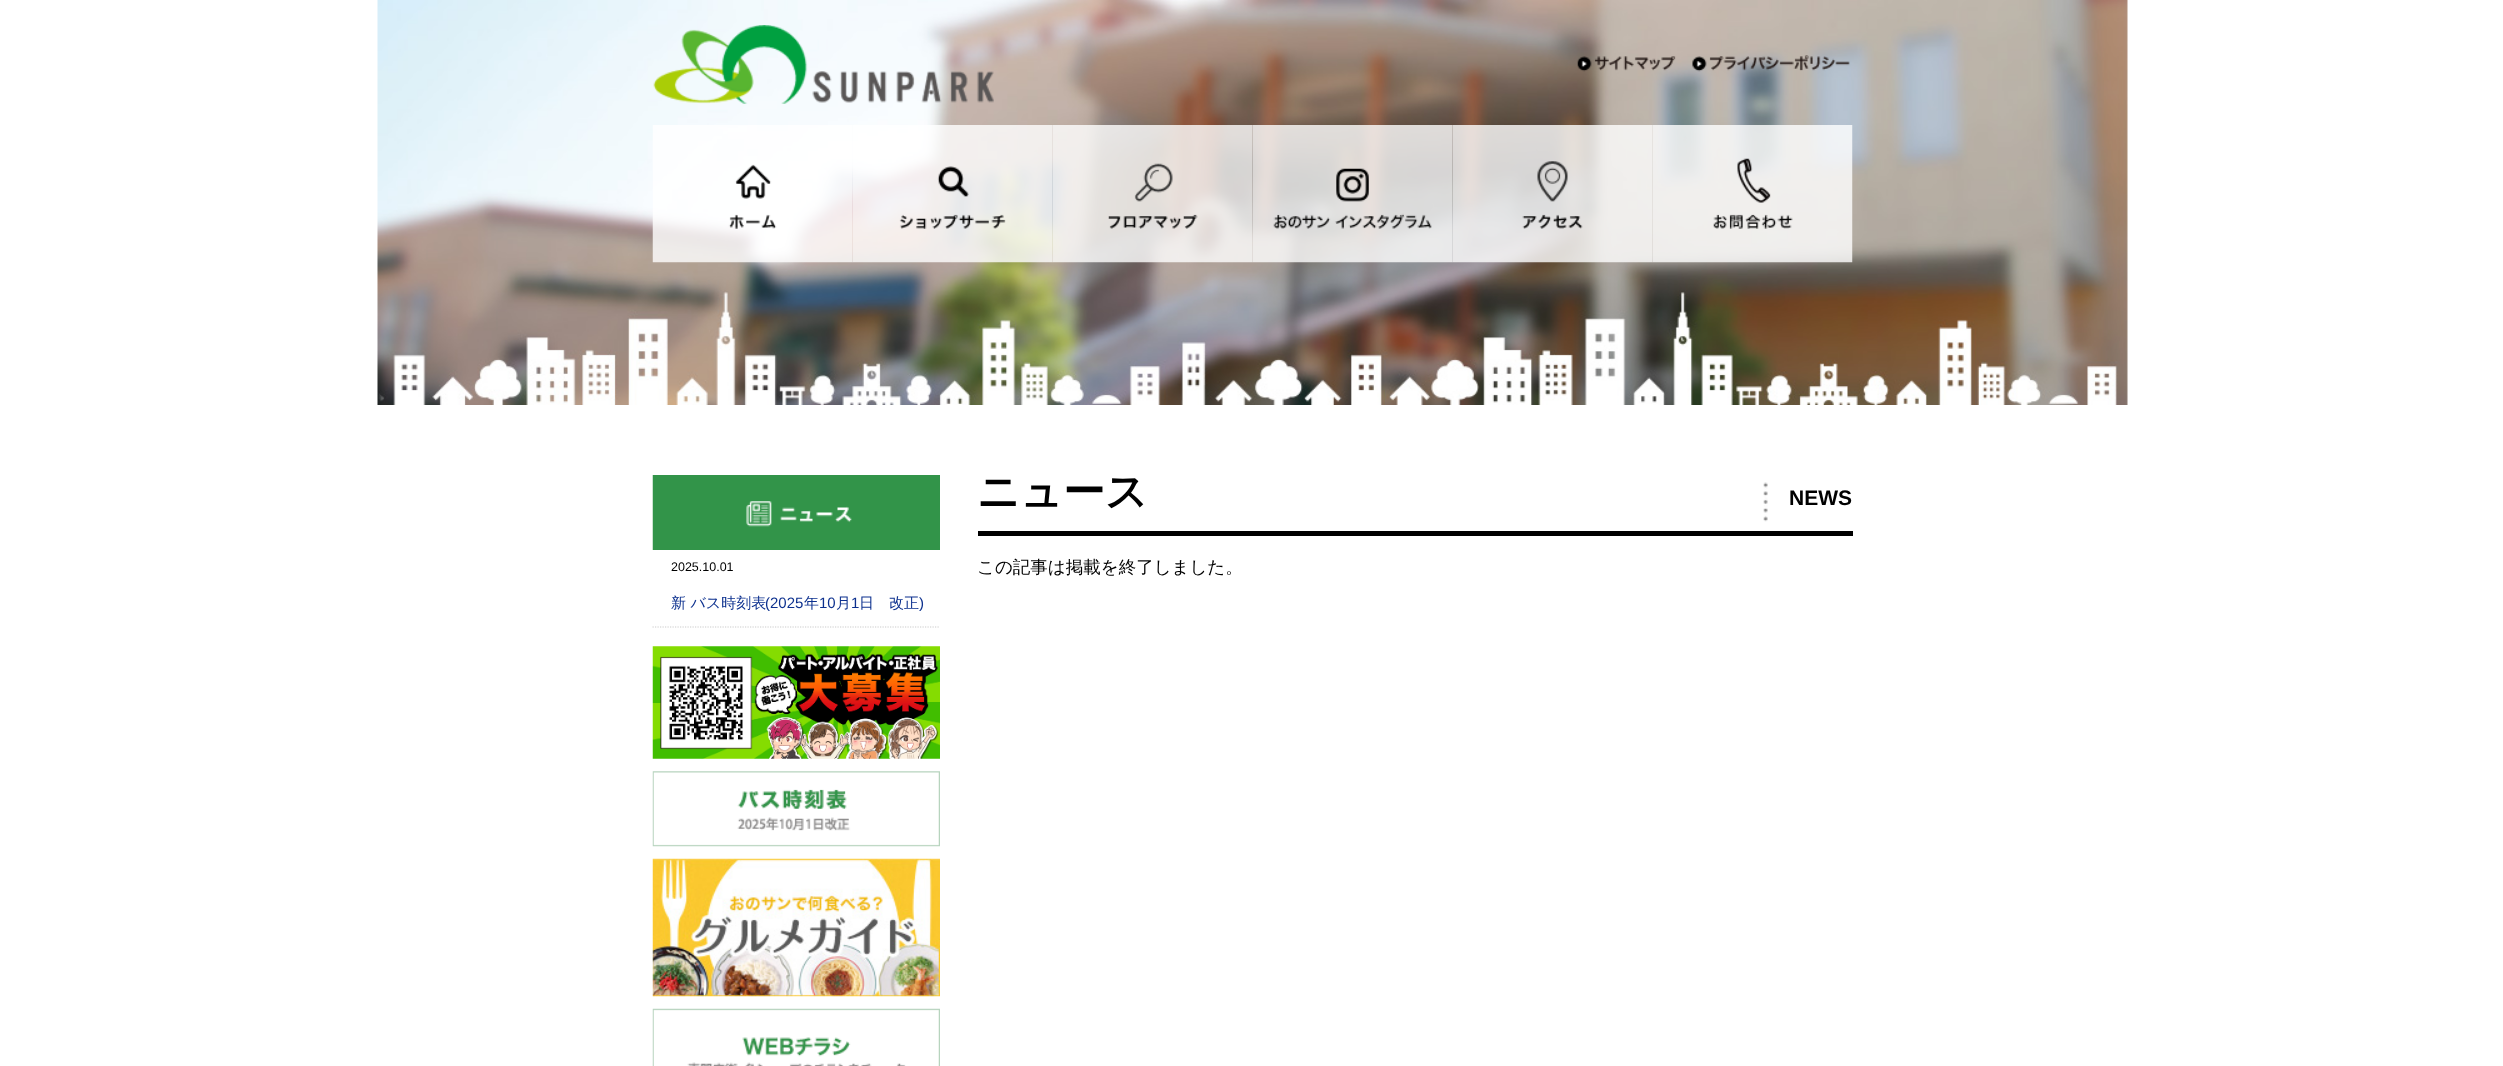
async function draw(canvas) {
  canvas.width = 2503;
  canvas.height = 1066;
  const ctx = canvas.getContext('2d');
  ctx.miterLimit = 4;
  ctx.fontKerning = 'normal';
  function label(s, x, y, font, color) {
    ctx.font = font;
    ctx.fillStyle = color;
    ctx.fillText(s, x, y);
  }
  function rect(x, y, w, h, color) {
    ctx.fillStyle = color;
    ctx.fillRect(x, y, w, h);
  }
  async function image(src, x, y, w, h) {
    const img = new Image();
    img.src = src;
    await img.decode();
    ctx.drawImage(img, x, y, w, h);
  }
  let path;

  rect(0, 0, 2503, 1066, '#fff');
  await image('assets/img1.png', 377, 0, 1751, 405);
  await image('assets/img2.png', 653, 25, 341, 79);
  await image('assets/img3.png', 1577, 56, 99, 16);
  await image('assets/img4.png', 1692, 55, 158, 17);
  await image('assets/img5.png', 652, 125, 201, 138);
  await image('assets/img6.png', 852, 125, 201, 138);
  await image('assets/img7.png', 1052, 125, 201, 138);
  await image('assets/img8.png', 1252, 125, 201, 138);
  await image('assets/img9.png', 1452, 125, 201, 138);
  await image('assets/img10.png', 1652, 125, 201, 138);
  rect(978, 531, 875, 5, '#000');
  label('ニュース', 977, 506, 'bold 42px WenQuanYi Zen Hei', '#000');
  await image('assets/img11.png', 1763, 482, 5, 40);
  label('NEWS', 1789, 505, 'bold 21px Liberation Sans', '#000');
  label('この記事は掲載を終了しました。', 977, 573, '500 17.5px WenQuanYi Zen Hei', '#000');
  await image('assets/img12.png', 652, 475, 288, 75);
  path = new Path2D('M652.5 627H940');
  ctx.strokeStyle = '#ccc';
  ctx.lineWidth = 1.2;
  ctx.setLineDash([1.25, 1.25]);
  ctx.stroke(path);
  label('2025.10.01', 671, 571, '12.5px Liberation Sans', '#000');
  label('新 バス時刻表', 671, 608, '500 15px WenQuanYi Zen Hei', '#0c308e');
  label('(2025', 765, 608, '15px Liberation Sans', '#0c308e');
  label('年', 804, 608, '500 15px WenQuanYi Zen Hei', '#0c308e');
  label('10', 819, 608, '15px Liberation Sans', '#0c308e');
  label('月', 836, 608, '500 15px WenQuanYi Zen Hei', '#0c308e');
  label('1', 851, 608, '15px Liberation Sans', '#0c308e');
  label('日　改正', 859, 608, '500 15px WenQuanYi Zen Hei', '#0c308e');
  label(')', 919, 608, '15px Liberation Sans', '#0c308e');
  await image('assets/img13.png', 652, 646, 288, 113);
  await image('assets/img14.png', 652, 771, 288, 76);
  await image('assets/img15.png', 652, 858, 288, 139);
  await image('assets/img16.png', 652, 1008, 288, 58);
}

draw(document.querySelector('canvas'));
